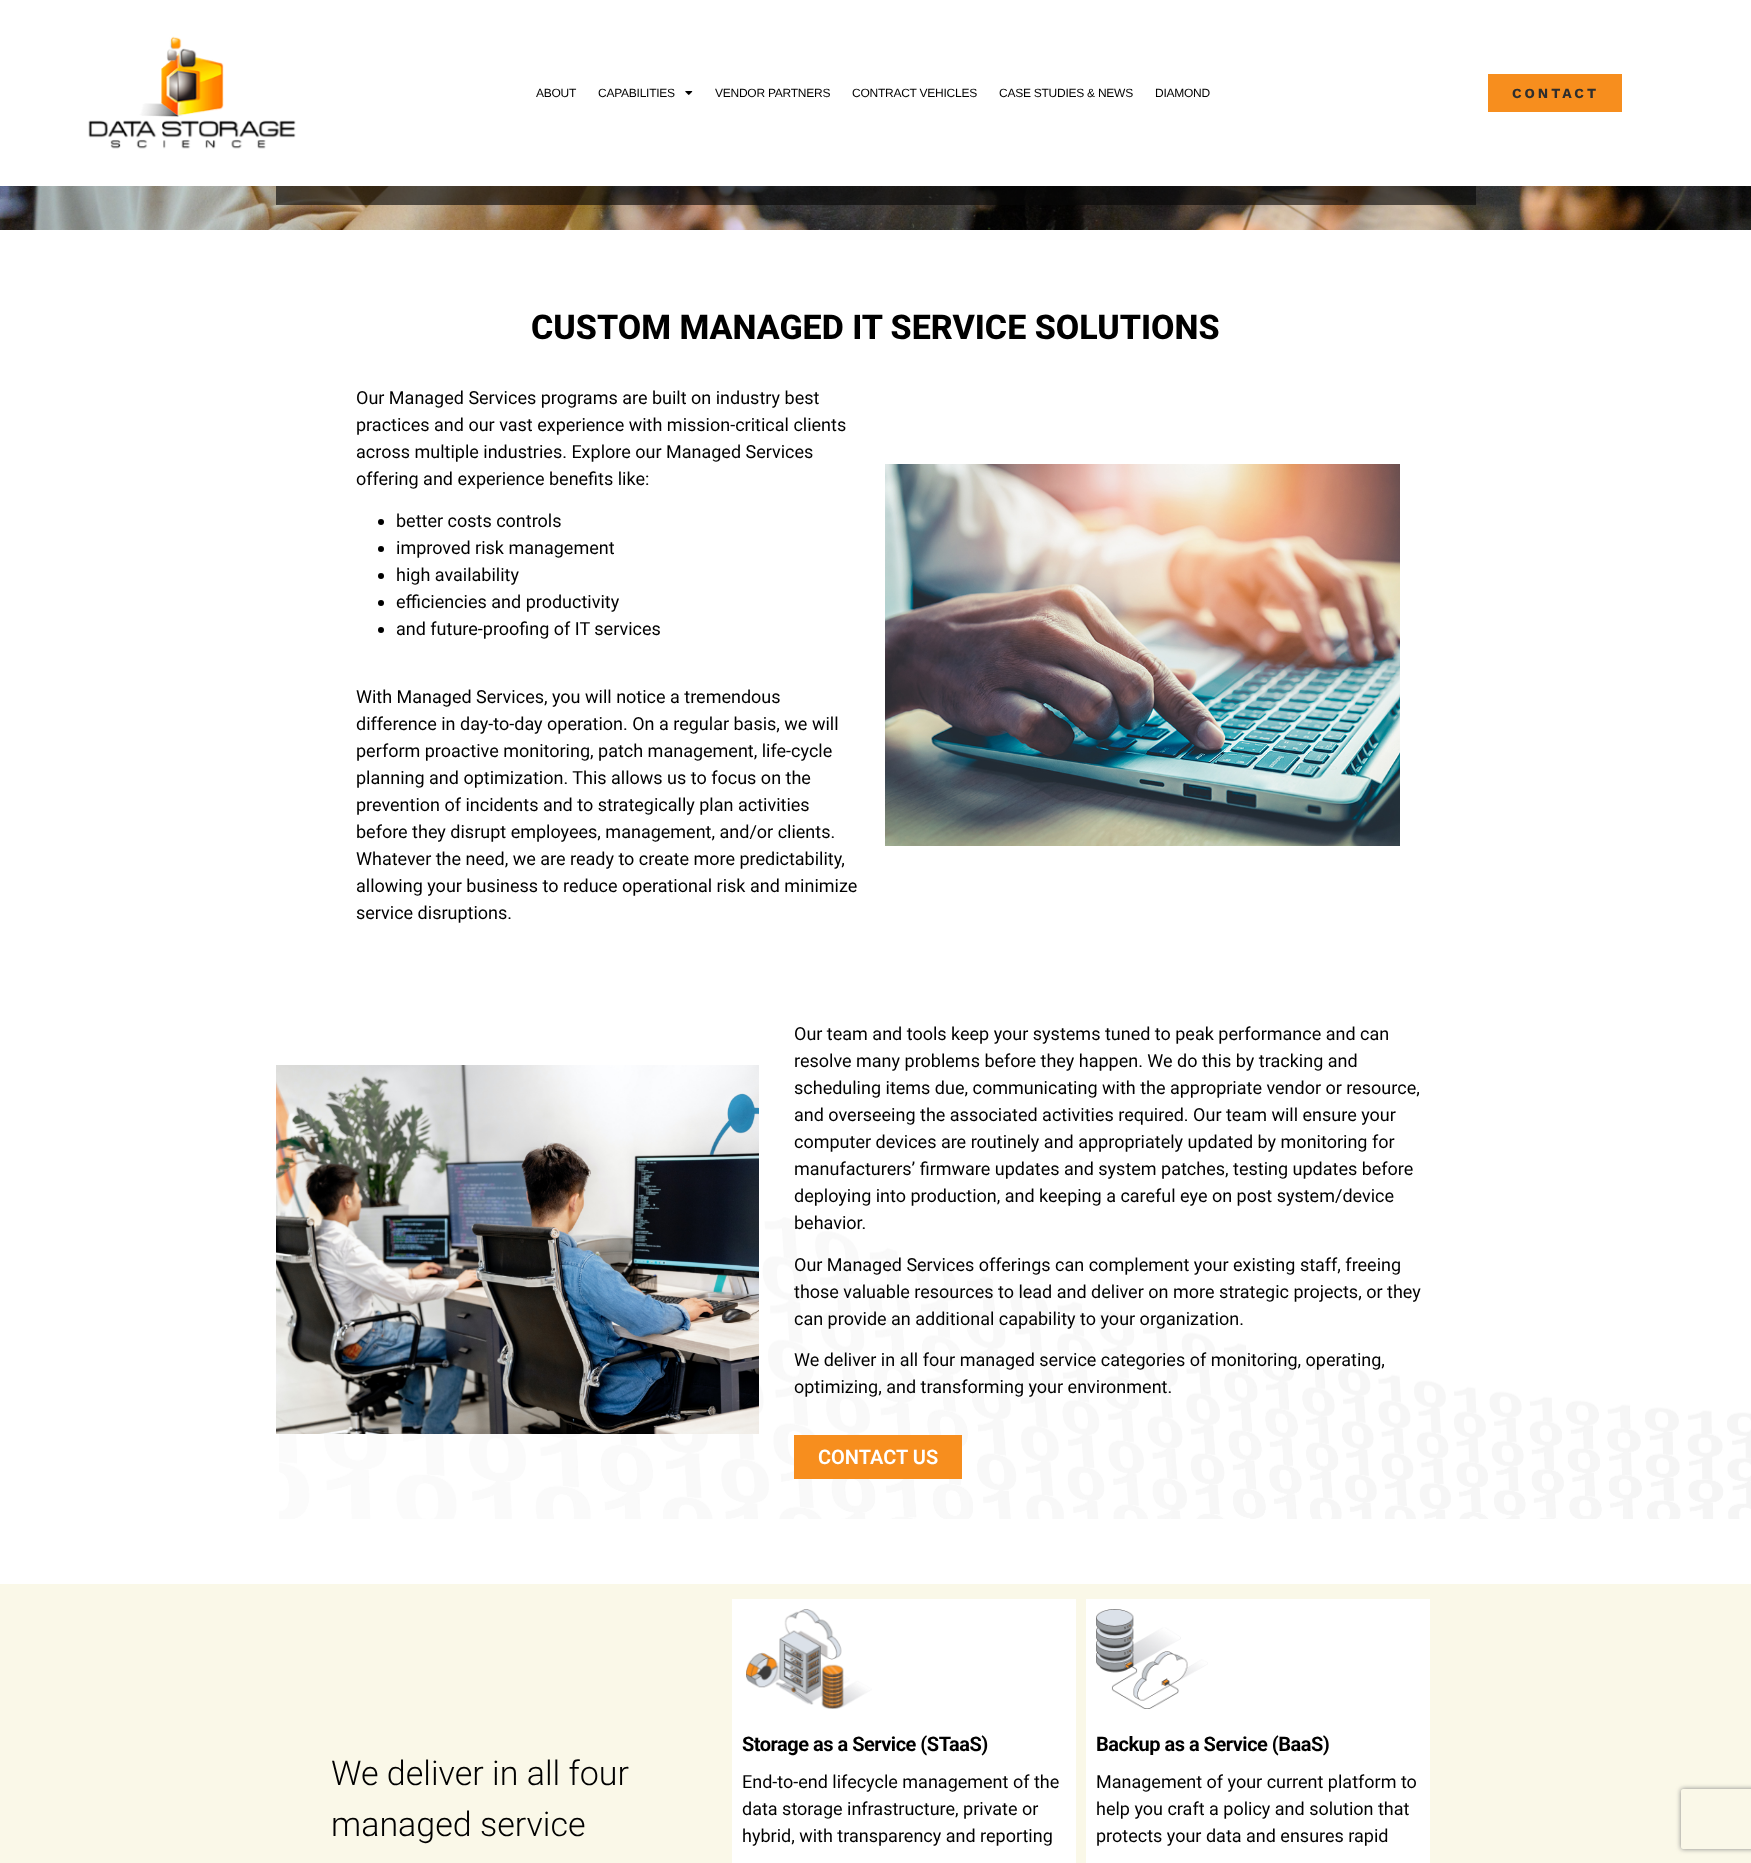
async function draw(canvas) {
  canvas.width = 1751;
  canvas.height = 1863;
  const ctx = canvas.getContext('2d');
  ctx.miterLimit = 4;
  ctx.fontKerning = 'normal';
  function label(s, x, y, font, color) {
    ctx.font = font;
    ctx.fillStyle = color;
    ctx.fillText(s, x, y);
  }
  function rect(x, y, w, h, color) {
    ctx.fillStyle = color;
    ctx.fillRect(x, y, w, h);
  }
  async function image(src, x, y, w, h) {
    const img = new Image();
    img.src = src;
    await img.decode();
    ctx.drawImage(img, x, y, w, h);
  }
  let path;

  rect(0, 0, 1751, 1863, '#fff');
  await image('assets/img1.png', 88, 36, 208, 113);
  ctx.letterSpacing = '-0.25px';
  label('ABOUT', 536, 97, '12px Liberation Sans', '#000');
  label('CAPABILITIES', 598, 97, '12px Liberation Sans', '#000');
  await image('assets/img2.png', 685, 91, 8, 4);
  label('VENDOR PARTNERS', 715, 97, '12px Liberation Sans', '#000');
  label('CONTRACT VEHICLES', 852, 97, '12px Liberation Sans', '#000');
  label('CASE STUDIES & NEWS', 999, 97, '12px Liberation Sans', '#000');
  label('DIAMOND', 1155, 97, '12px Liberation Sans', '#000');
  rect(1488, 74, 134, 38, '#f78e1e');
  ctx.letterSpacing = '3px';
  label('CONTACT', 1512, 98, 'bold 14px Work Sans', '#2e2e2e');
  await image('assets/img3.png', 0, 186, 1751, 44);
  rect(276, 186, 1200, 19, '#080808a1');
  ctx.letterSpacing = '0px';
  label('CUSTOM MANAGED IT SERVICE SOLUTIONS', 531, 339, '800 34px Roboto', '#000');
  label('Our Managed Services programs are built on industry best', 356, 404, '18px Roboto', '#000');
  label('practices and our vast experience with mission-critical clients', 356, 431, '18px Roboto', '#000');
  label('across multiple industries. Explore our Managed Services', 356, 458, '18px Roboto', '#000');
  label('offering and experience benefits like:', 356, 485, '18px Roboto', '#000');
  ctx.beginPath();
  ctx.arc(381, 522, 3, 0, 2 * Math.PI);
  ctx.fill();
  label('better costs controls', 396, 527, '18px Roboto', '#000');
  ctx.beginPath();
  ctx.arc(381, 549, 3, 0, 2 * Math.PI);
  ctx.fill();
  label('improved risk management', 396, 554, '18px Roboto', '#000');
  ctx.beginPath();
  ctx.arc(381, 576, 3, 0, 2 * Math.PI);
  ctx.fill();
  label('high availability', 396, 581, '18px Roboto', '#000');
  ctx.beginPath();
  ctx.arc(381, 603, 3, 0, 2 * Math.PI);
  ctx.fill();
  label('efficiencies and productivity', 396, 608, '18px Roboto', '#000');
  ctx.beginPath();
  ctx.arc(381, 630, 3, 0, 2 * Math.PI);
  ctx.fill();
  label('and future-proofing of IT services', 396, 635, '18px Roboto', '#000');
  label('With Managed Services, you will notice a tremendous', 356, 703, '18px Roboto', '#000');
  label('difference in day-to-day operation. On a regular basis, we will', 356, 730, '18px Roboto', '#000');
  label('perform proactive monitoring, patch management, life-cycle', 356, 757, '18px Roboto', '#000');
  label('planning and optimization. This allows us to focus on the', 356, 784, '18px Roboto', '#000');
  label('prevention of incidents and to strategically plan activities', 356, 811, '18px Roboto', '#000');
  label('before they disrupt employees, management, and/or clients.', 356, 838, '18px Roboto', '#000');
  label('Whatever the need, we are ready to create more predictability,', 356, 865, '18px Roboto', '#000');
  label('allowing your business to reduce operational risk and minimize', 356, 892, '18px Roboto', '#000');
  label('service disruptions.', 356, 919, '18px Roboto', '#000');
  await image('assets/img4.png', 885, 464, 515, 382);
  await image('assets/img5.png', 279, 1079, 1472, 440);
  await image('assets/img6.png', 276, 1065, 483, 369);
  label('Our team and tools keep your systems tuned to peak performance and can', 794, 1040, '18px Roboto', '#000');
  label('resolve many problems before they happen. We do this by tracking and', 794, 1067, '18px Roboto', '#000');
  label('scheduling items due, communicating with the appropriate vendor or resource,', 794, 1094, '18px Roboto', '#000');
  label('and overseeing the associated activities required. Our team will ensure your', 794, 1121, '18px Roboto', '#000');
  label('computer devices are routinely and appropriately updated by monitoring for', 794, 1148, '18px Roboto', '#000');
  label('manufacturers’ firmware updates and system patches, testing updates before', 794, 1175, '18px Roboto', '#000');
  label('deploying into production, and keeping a careful eye on post system/device', 794, 1202, '18px Roboto', '#000');
  label('behavior.', 794, 1229, '18px Roboto', '#000');
  label('Our Managed Services offerings can complement your existing staff, freeing', 794, 1271, '18px Roboto', '#000');
  label('those valuable resources to lead and deliver on more strategic projects, or they', 794, 1298, '18px Roboto', '#000');
  label('can provide an additional capability to your organization.', 794, 1325, '18px Roboto', '#000');
  label('We deliver in all four managed service categories of monitoring, operating,', 794, 1366, '18px Roboto', '#000');
  label('optimizing, and transforming your environment.', 794, 1393, '18px Roboto', '#000');
  rect(794, 1435, 168, 44, '#f78e1e');
  label('CONTACT US', 818, 1464, '600 20px Roboto', '#fff');
  rect(0, 1584, 1751, 279, '#faf8e8');
  label('We deliver in all four', 331, 1785, '300 34px Roboto', '#000');
  label('managed service', 331, 1836, '300 34px Roboto', '#000');
  rect(732, 1599, 344, 264, '#fff');
  await image('assets/img7.png', 746, 1609, 126, 100);
  ctx.letterSpacing = '-0.5px';
  label('Storage as a Service (STaaS)', 742, 1751, 'bold 20px Roboto', '#000');
  ctx.letterSpacing = '0px';
  label('End-to-end lifecycle management of the', 742, 1788, '18px Roboto', '#000');
  label('data storage infrastructure, private or', 742, 1815, '18px Roboto', '#000');
  label('hybrid, with transparency and reporting', 742, 1842, '18px Roboto', '#000');
  rect(1086, 1599, 344, 264, '#fff');
  await image('assets/img8.png', 1096, 1609, 112, 100);
  ctx.letterSpacing = '-0.5px';
  label('Backup as a Service (BaaS)', 1096, 1751, 'bold 20px Roboto', '#000');
  ctx.letterSpacing = '0px';
  label('Management of your current platform to', 1096, 1788, '18px Roboto', '#000');
  label('help you craft a policy and solution that', 1096, 1815, '18px Roboto', '#000');
  label('protects your data and ensures rapid', 1096, 1842, '18px Roboto', '#000');
  ctx.save();
  path = new Path2D('M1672 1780H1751V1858H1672ZM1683 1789H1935C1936 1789 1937 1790 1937 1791V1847C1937 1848 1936 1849 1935 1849H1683C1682 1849 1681 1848 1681 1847V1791C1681 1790 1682 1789 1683 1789Z');
  ctx.clip(path, 'evenodd');
  ctx.fillStyle = '#808080';
  ctx.filter = 'blur(2.5px)';
  ctx.beginPath();
  ctx.roundRect(1681, 1789, 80, 60, 2);
  ctx.fill();
  ctx.filter = 'none';
  ctx.restore();
}

draw(document.querySelector('canvas'));
